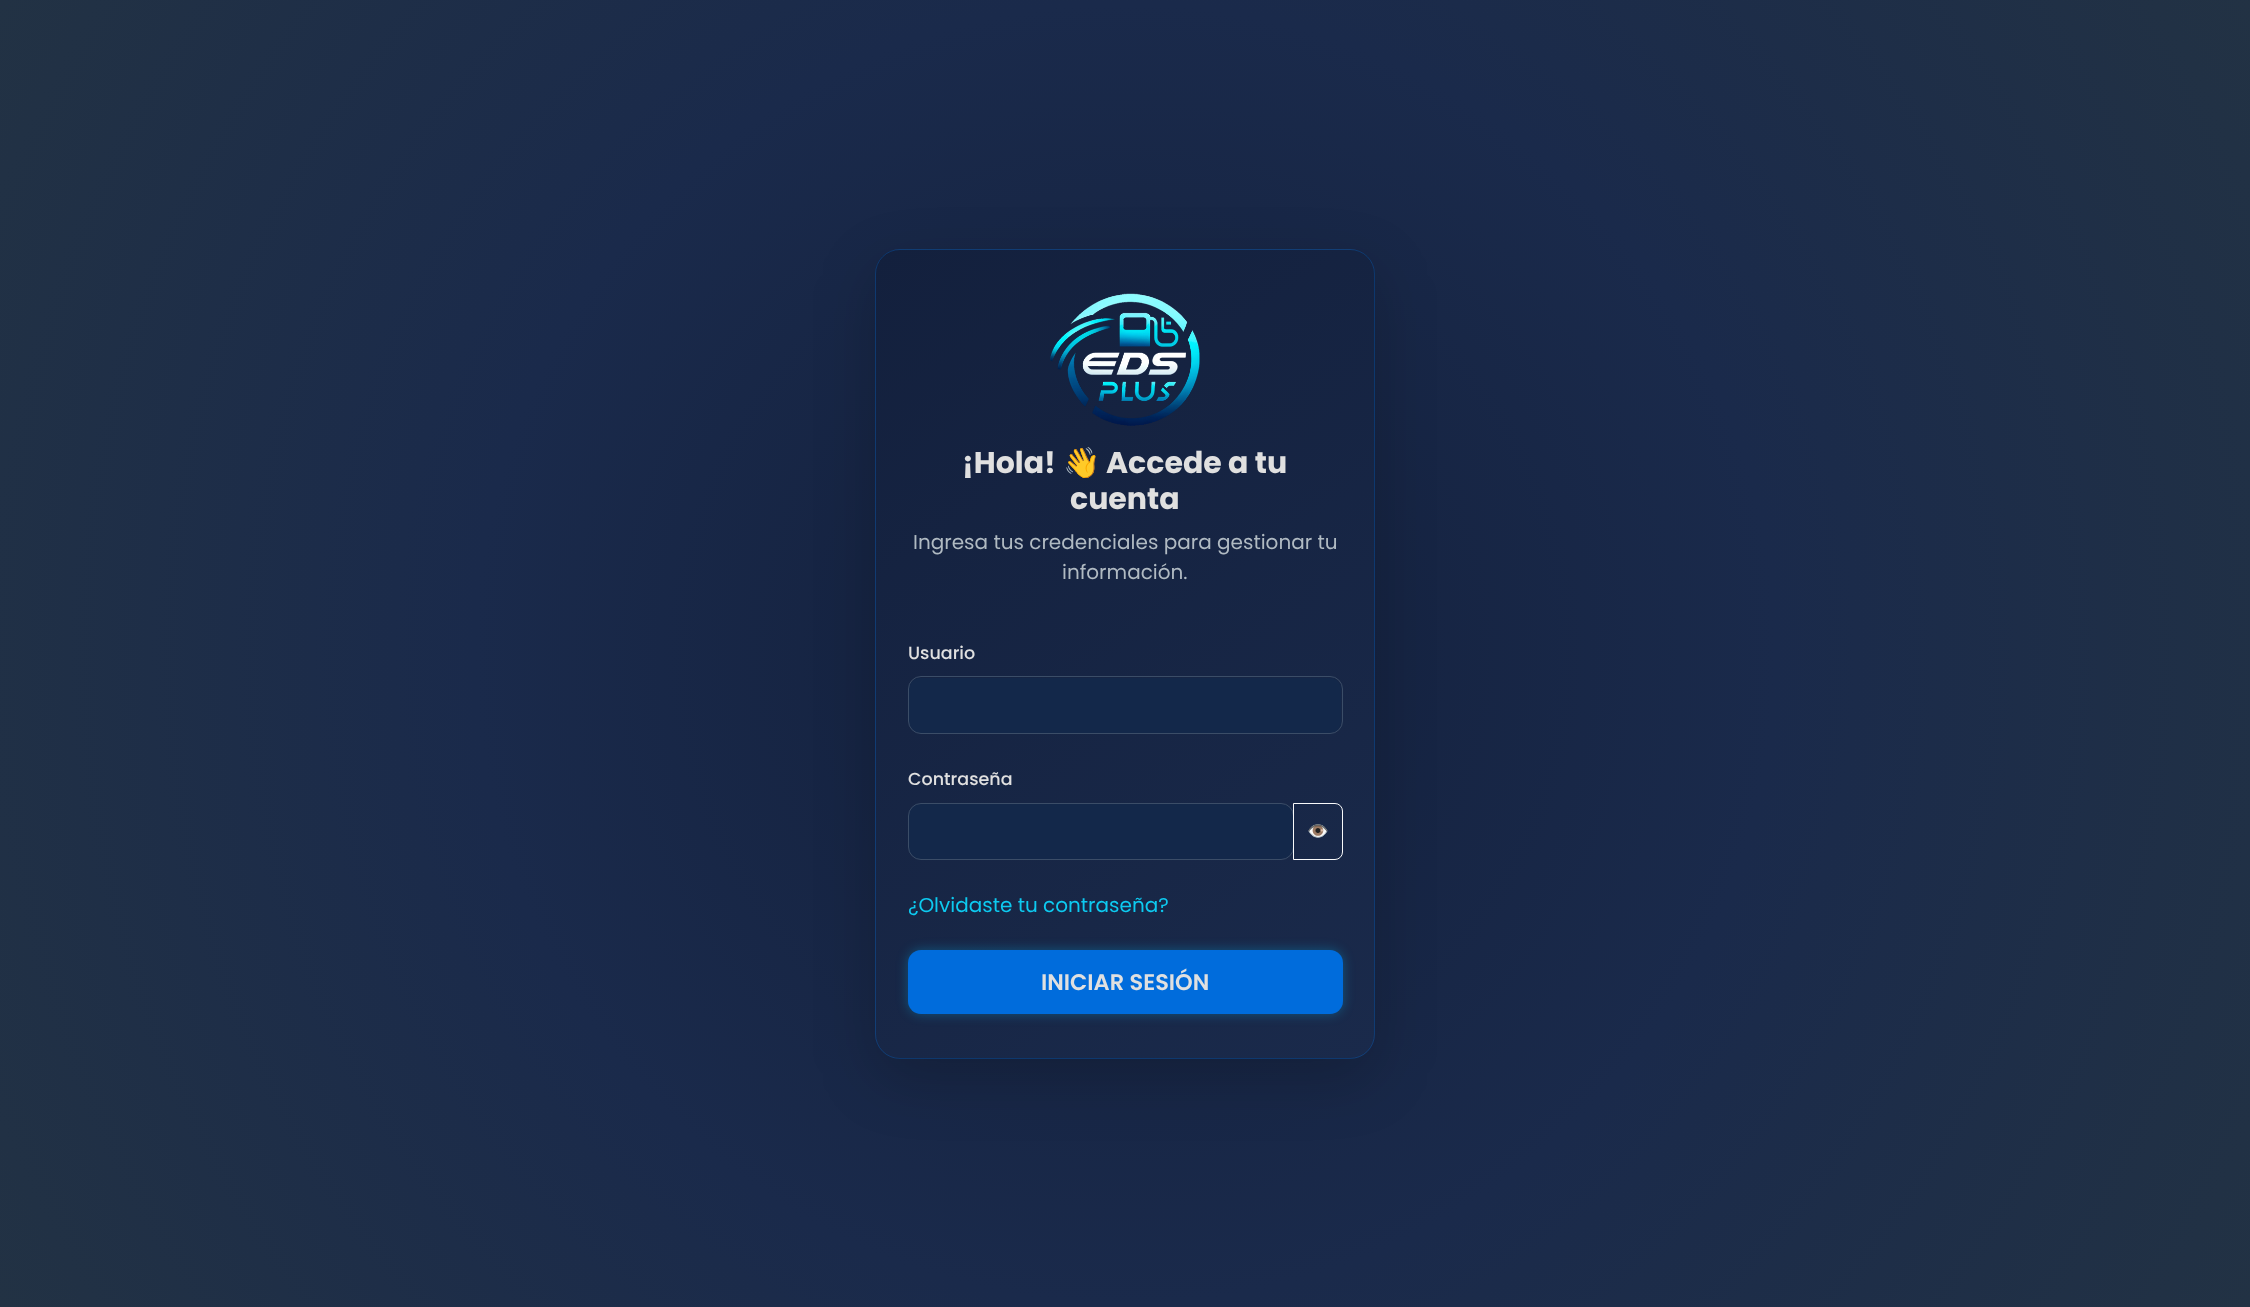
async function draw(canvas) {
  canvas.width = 2250;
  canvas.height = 1307;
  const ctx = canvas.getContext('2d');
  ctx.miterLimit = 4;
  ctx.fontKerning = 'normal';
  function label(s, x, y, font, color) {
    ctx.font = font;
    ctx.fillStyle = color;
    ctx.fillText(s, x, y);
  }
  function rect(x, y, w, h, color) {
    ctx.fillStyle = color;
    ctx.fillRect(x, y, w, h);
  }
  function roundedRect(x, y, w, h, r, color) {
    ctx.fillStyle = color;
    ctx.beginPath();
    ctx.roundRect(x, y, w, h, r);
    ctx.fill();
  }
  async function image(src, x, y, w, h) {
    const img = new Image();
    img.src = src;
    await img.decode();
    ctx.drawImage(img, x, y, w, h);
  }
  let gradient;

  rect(0, 0, 2250, 1307, '#fff');
  gradient = ctx.createRadialGradient(1125, 654, 0, 1125, 654, 1301);
  gradient.addColorStop(0, '#13203d');
  gradient.addColorStop(0.5, '#1a2a4b');
  gradient.addColorStop(1, '#223244');
  ctx.fillStyle = gradient;
  ctx.fillRect(0, 0, 2250, 1307);
  ctx.fillStyle = '#0000002e';
  ctx.filter = 'blur(30px)';
  ctx.beginPath();
  ctx.roundRect(875, 269, 500, 810, 25);
  ctx.fill();
  ctx.filter = 'none';
  ctx.save();
  ctx.beginPath();
  ctx.roundRect(875, 249, 500, 810, 25);
  ctx.clip();
  gradient = ctx.createLinearGradient(853, -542, 1397, 234);
  gradient.addColorStop(0, '#13203d');
  gradient.addColorStop(1, '#1a2a4b');
  ctx.fillStyle = gradient;
  ctx.fillRect(893, 249, 464, 1);
  gradient = ctx.createLinearGradient(356, 266, 899, 1042);
  gradient.addColorStop(0, '#13203d');
  gradient.addColorStop(1, '#1a2a4b');
  ctx.fillStyle = gradient;
  ctx.fillRect(875, 267, 1, 774);
  gradient = ctx.createLinearGradient(853, 266, 1397, 1042);
  gradient.addColorStop(0, '#13203d');
  gradient.addColorStop(1, '#1a2a4b');
  ctx.fillStyle = gradient;
  ctx.fillRect(876, 250, 498, 808);
  gradient = ctx.createLinearGradient(1351, 266, 1894, 1042);
  gradient.addColorStop(0, '#13203d');
  gradient.addColorStop(1, '#1a2a4b');
  ctx.fillStyle = gradient;
  ctx.fillRect(1374, 267, 1, 774);
  gradient = ctx.createLinearGradient(853, 1073, 1397, 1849);
  gradient.addColorStop(0, '#13203d');
  gradient.addColorStop(1, '#1a2a4b');
  ctx.fillStyle = gradient;
  ctx.fillRect(893, 1058, 464, 1);
  ctx.restore();
  ctx.beginPath();
  ctx.roundRect(875.5, 249.5, 499, 809, 24.5);
  ctx.strokeStyle = '#006cdc4d';
  ctx.stroke();
  await image('assets/img1.png', 1050, 293, 150, 133);
  label('¡Hola!', 962, 473, 'bold 30px Poppins', '#e0e0e0');
  label('👋', 1063, 473, 'bold 30px Noto Color Emoji', '#e0e0e0');
  label('Accede a tu', 1106, 473, 'bold 30px Poppins', '#e0e0e0');
  label('cuenta', 1070, 509, 'bold 30px Poppins', '#e0e0e0');
  label('Ingresa tus credenciales para gestionar tu', 913, 549, '20px Poppins', '#b0bac2');
  label('información.', 1062, 579, '20px Poppins', '#b0bac2');
  label('Usuario', 908, 659, '500 17.5px Poppins', '#e0e0e0');
  roundedRect(909, 678, 432, 55, 11, '#13284a');
  ctx.beginPath();
  ctx.roundRect(908.5, 676.5, 434, 57, 12.5);
  ctx.strokeStyle = '#3b4d67';
  ctx.stroke();
  label('Contraseña', 908, 785, '500 17.5px Poppins', '#e0e0e0');
  roundedRect(909, 804, 384, 55, 11, '#13284a');
  ctx.beginPath();
  ctx.roundRect(908.5, 803.5, 385, 56, 12.5);
  ctx.stroke();
  ctx.beginPath();
  ctx.roundRect(1293.5, 803.5, 49, 56, [0, 7.5, 7.5, 0]);
  ctx.strokeStyle = '#f8f9fa';
  ctx.stroke();
  label('👁️', 1307, 837, '17.5px Noto Color Emoji', '#f8f9fa');
  label('¿Olvidaste tu contraseña?', 908, 912, '20px Poppins', '#0dcaf0');
  ctx.fillStyle = '#00c4ff4d';
  ctx.filter = 'blur(6px)';
  ctx.beginPath();
  ctx.roundRect(908, 950, 435, 64, 13);
  ctx.fill();
  ctx.filter = 'none';
  roundedRect(908, 950, 435, 64, 13, '#006cdc');
  label('INICIAR SESIÓN', 1041, 990, '600 22.5px Poppins', '#e0e0e0');
}

draw(document.querySelector('canvas'));
